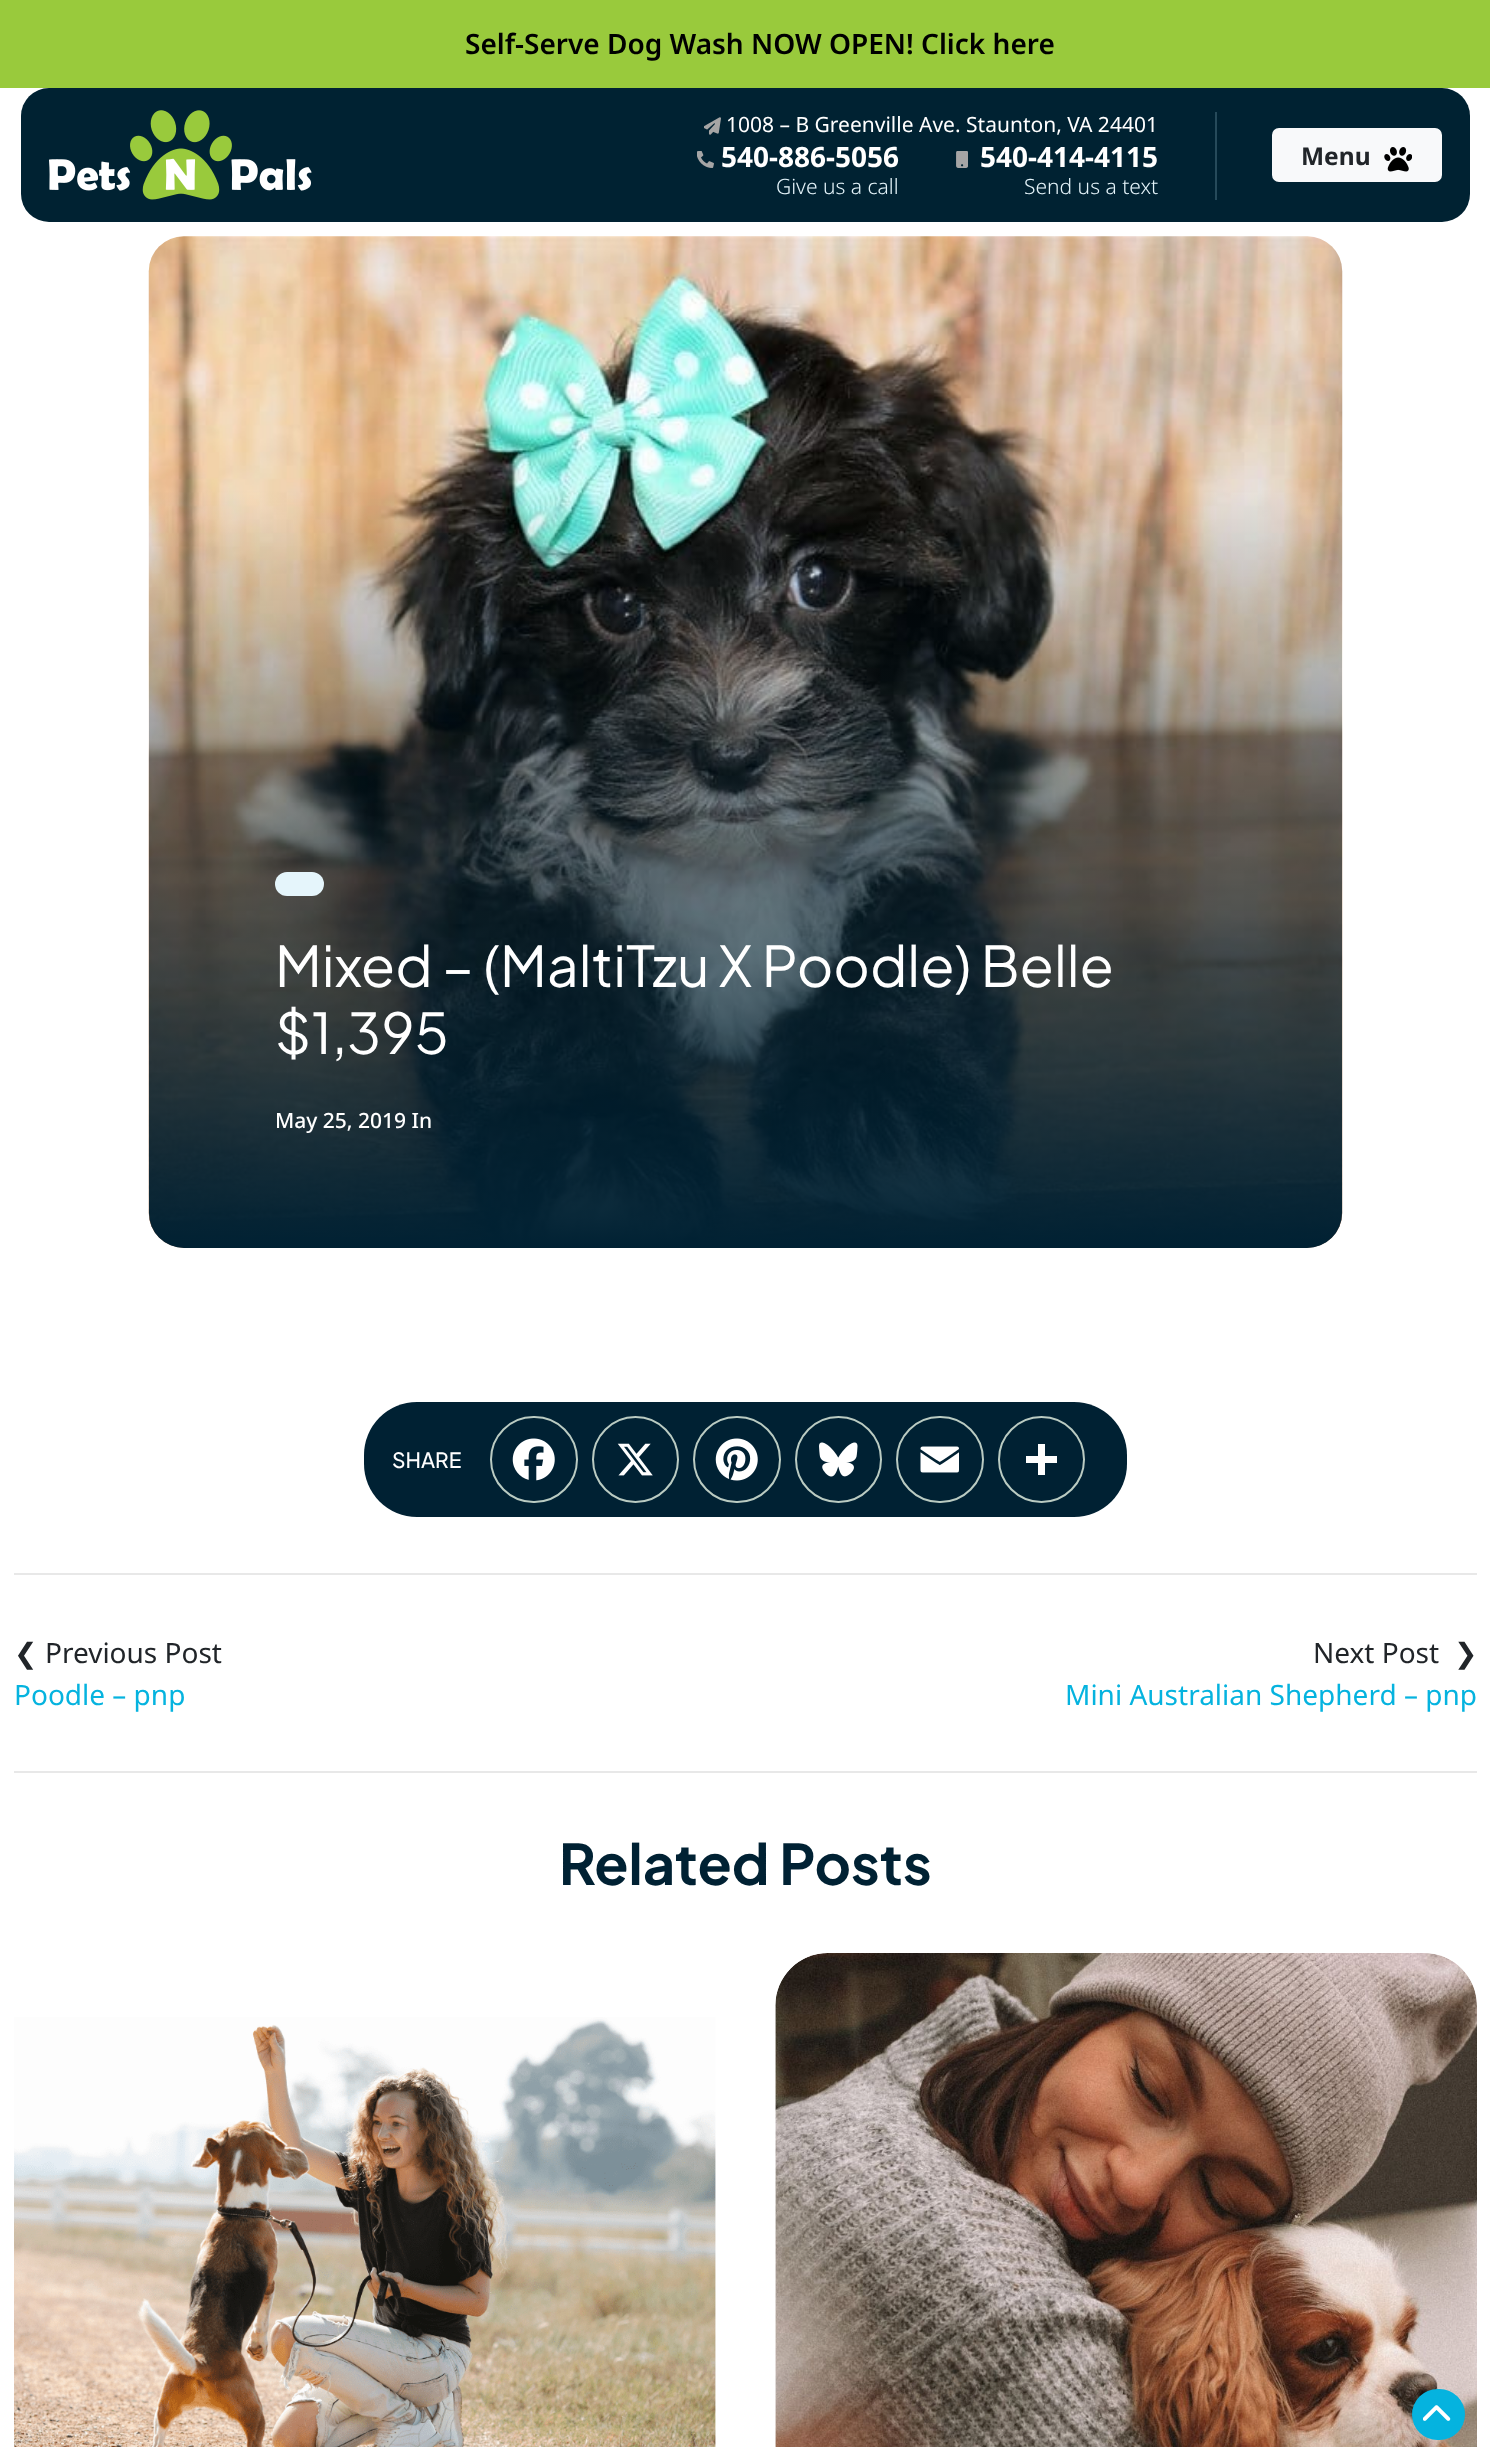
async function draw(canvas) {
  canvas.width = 1490;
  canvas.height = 2447;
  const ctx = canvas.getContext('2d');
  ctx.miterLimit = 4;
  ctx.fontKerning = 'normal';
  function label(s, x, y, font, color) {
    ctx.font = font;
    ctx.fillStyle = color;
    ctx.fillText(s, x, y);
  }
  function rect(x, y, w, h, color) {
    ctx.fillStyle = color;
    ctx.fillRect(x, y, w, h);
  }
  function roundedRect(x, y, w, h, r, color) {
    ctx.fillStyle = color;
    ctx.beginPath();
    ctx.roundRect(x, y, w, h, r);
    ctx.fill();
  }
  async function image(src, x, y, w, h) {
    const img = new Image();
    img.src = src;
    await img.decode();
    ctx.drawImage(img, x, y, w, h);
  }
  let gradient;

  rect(0, 0, 1490, 2447, '#fff');
  rect(0, 0, 1490, 88, '#99ca3c');
  label('Self-Serve Dog Wash NOW OPEN! Click here', 465, 54, '600 28px Noto Sans', '#000');
  roundedRect(21, 88, 1449, 134, 28, '#002232');
  await image('assets/img1.png', 49, 110, 263, 90);
  rect(1215, 112, 2, 88, '#264a5a');
  await image('assets/img2.png', 704, 117, 17, 18);
  label('1008 – B Greenville Ave. Staunton, VA 24401', 726, 132, '21px Noto Sans', '#fff');
  await image('assets/img3.png', 697, 151, 17, 17);
  label('540-886-5056', 721, 167, 'bold 28px Noto Sans', '#fff');
  label('Give us a call', 776, 194, '300 21px Noto Sans', '#e5f5fb');
  await image('assets/img4.png', 956, 151, 12, 17);
  label('540-414-4115', 980, 167, 'bold 28px Noto Sans', '#fff');
  label('Send us a text', 1024, 194, '300 21px Noto Sans', '#e5f5fb');
  ctx.fillStyle = '#f8f9fa';
  ctx.beginPath();
  ctx.roundRect(1273, 129, 168, 52, 6);
  ctx.fill();
  ctx.strokeStyle = '#f8f9fa';
  ctx.lineWidth = 2;
  ctx.stroke();
  label('Menu', 1301, 165, 'bold 24.5px Noto Sans', '#212529');
  await image('assets/img5.png', 1384, 147, 28, 25);
  await image('assets/img6.png', 148, 236, 1195, 1012);
  gradient = ctx.createLinearGradient(745, 236, 746, 1248);
  gradient.addColorStop(0.25, '#00213300');
  gradient.addColorStop(1, '#002133');
  ctx.fillStyle = gradient;
  ctx.beginPath();
  ctx.roundRect(149, 236, 1193, 1012, 35);
  ctx.fill();
  roundedRect(275, 872, 49, 24, 12, '#e5f5fb');
  label('Mixed – (MaltiTzu X Poodle) Belle', 275, 987, '56px Plus Jakarta Sans', '#fff');
  label('$1,395', 275, 1054, '56px Plus Jakarta Sans', '#fff');
  label('May 25, 2019 In', 275, 1128, '500 21px Noto Sans', '#fff');
  roundedRect(364, 1402, 763, 115, 53, '#002133');
  label('SHARE', 392, 1468, '500 21px Plus Jakarta Sans', '#fff');
  ctx.beginPath();
  ctx.roundRect(491, 1417, 86, 85, 42.5);
  ctx.strokeStyle = '#bacbc2';
  ctx.stroke();
  await image('assets/img7.png', 512, 1438, 43, 43);
  ctx.beginPath();
  ctx.arc(635.5, 1459.5, 42.5, 0, 2 * Math.PI);
  ctx.stroke();
  await image('assets/img8.png', 617, 1443, 36, 33);
  ctx.beginPath();
  ctx.roundRect(694, 1417, 86, 85, 42.5);
  ctx.stroke();
  await image('assets/img9.png', 715, 1438, 43, 43);
  ctx.beginPath();
  ctx.arc(838.5, 1459.5, 42.5, 0, 2 * Math.PI);
  ctx.stroke();
  await image('assets/img10.png', 819, 1442, 39, 35);
  ctx.beginPath();
  ctx.roundRect(897, 1417, 86, 85, 42.5);
  ctx.stroke();
  await image('assets/img11.png', 920, 1446, 39, 27);
  ctx.beginPath();
  ctx.arc(1041.5, 1459.5, 42.5, 0, 2 * Math.PI);
  ctx.stroke();
  rect(1038, 1444, 7, 31, '#fff');
  rect(1026, 1456, 31, 7, '#fff');
  rect(14, 1573, 1463, 2, '#e8e8e8');
  rect(14, 1771, 1463, 2, '#e8e8e8');
  label('❮', 14, 1663, '28px DejaVu Sans', '#212529');
  label('Previous Post', 45, 1663, '28px Noto Sans', '#212529');
  label('Poodle – pnp', 14, 1705, '28px Noto Sans', '#05b3df');
  label('Next Post', 1313, 1663, '28px Noto Sans', '#212529');
  label('❯', 1454, 1663, '28px DejaVu Sans', '#212529');
  label('Mini Australian Shepherd – pnp', 1065, 1705, '28px Noto Sans', '#05b3df');
  label('Related Posts', 559, 1885, 'bold 56px Plus Jakarta Sans', '#002133');
  await image('assets/img12.png', 14, 2017, 702, 430);
  await image('assets/img13.png', 775, 1953, 702, 494);
  roundedRect(1412, 2389, 53, 51, 25.5, '#05b3df');
  await image('assets/img14.png', 1423, 2405, 28, 16);
}

draw(document.querySelector('canvas'));
